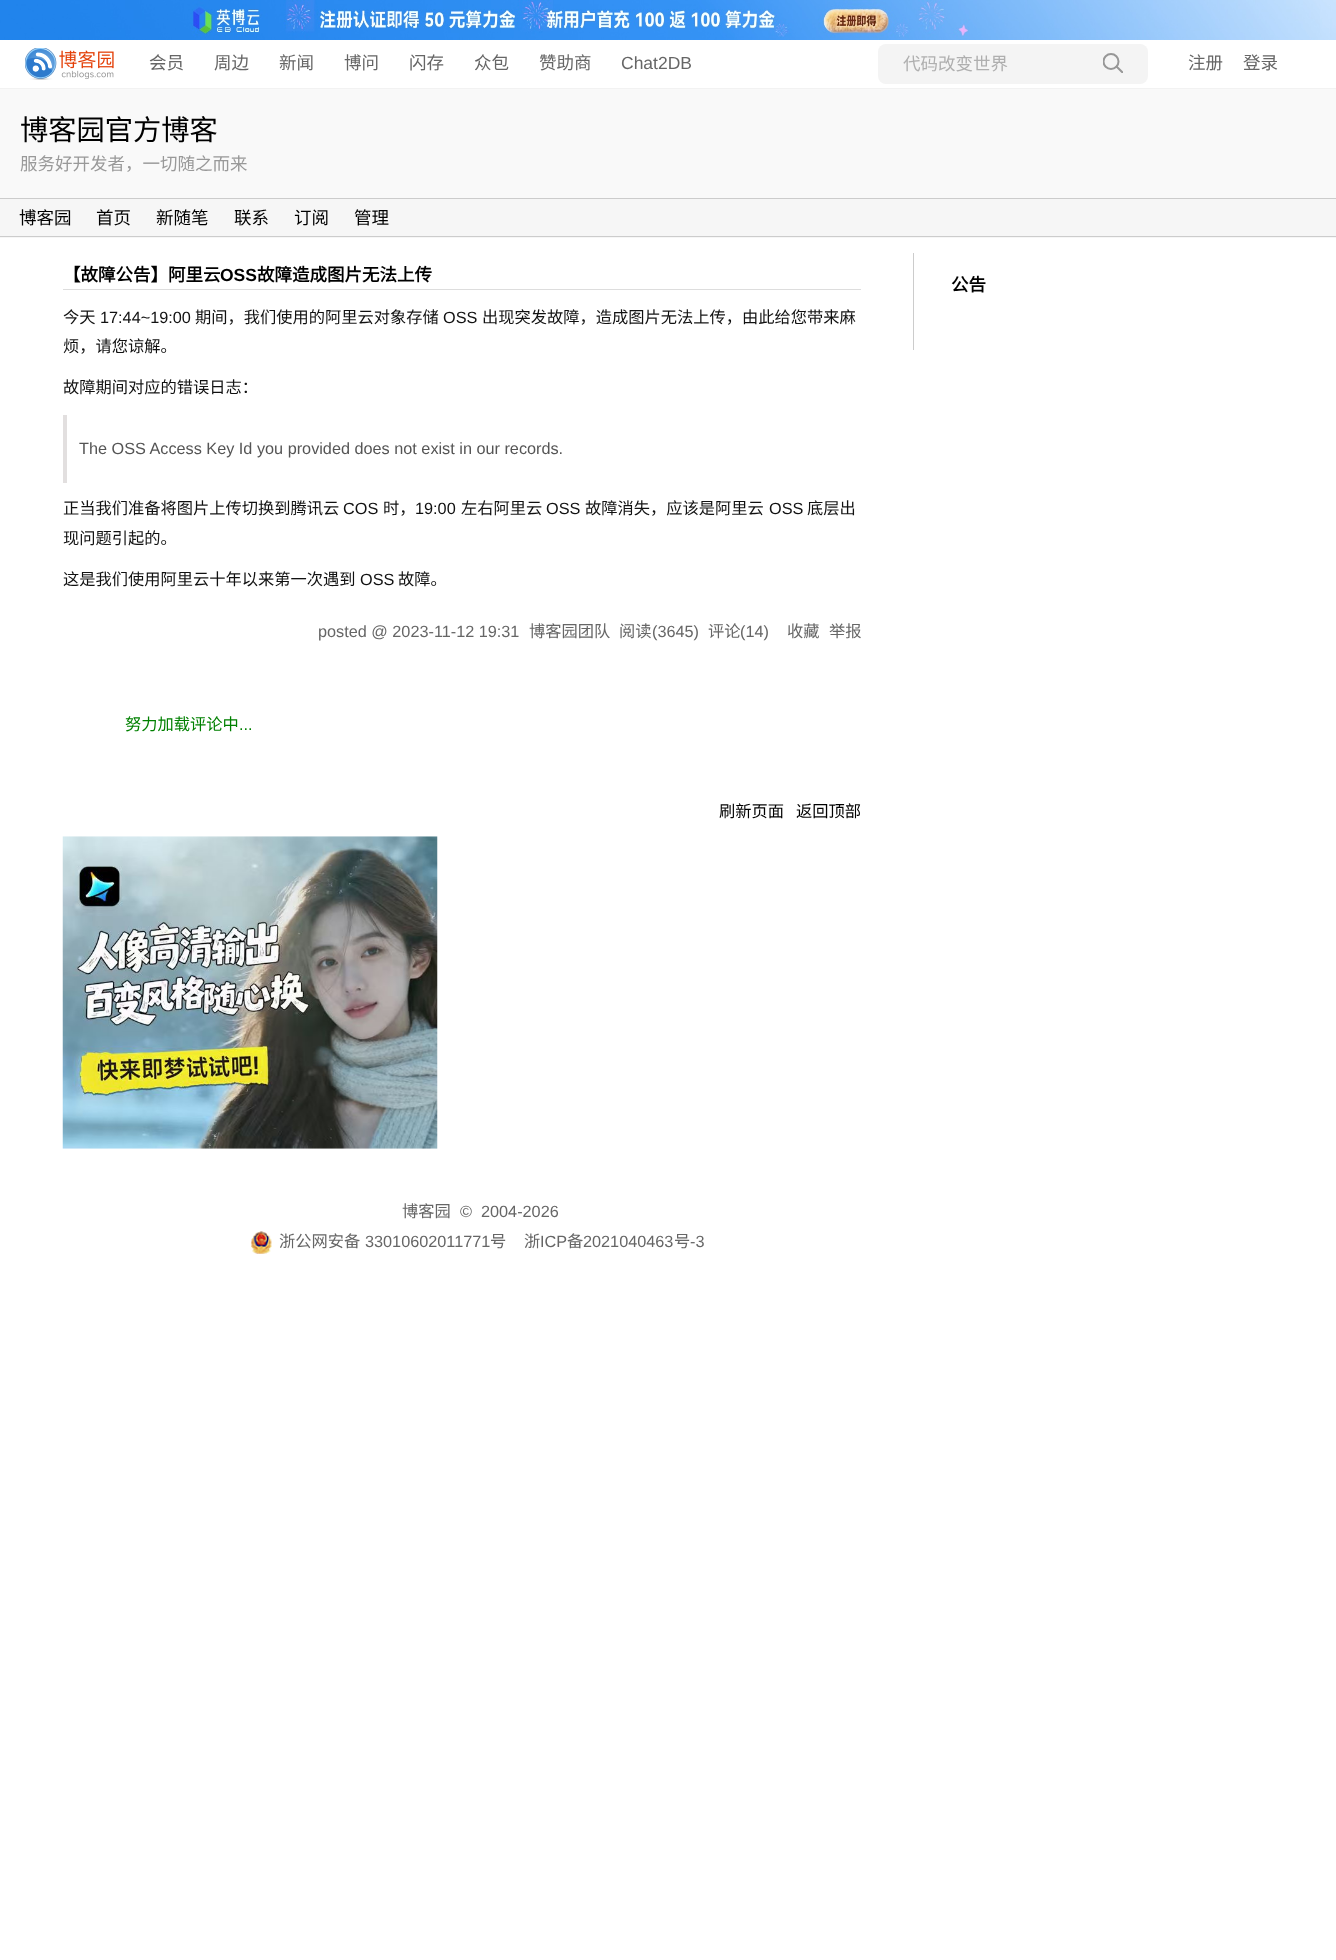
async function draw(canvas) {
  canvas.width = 1336;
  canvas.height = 1960;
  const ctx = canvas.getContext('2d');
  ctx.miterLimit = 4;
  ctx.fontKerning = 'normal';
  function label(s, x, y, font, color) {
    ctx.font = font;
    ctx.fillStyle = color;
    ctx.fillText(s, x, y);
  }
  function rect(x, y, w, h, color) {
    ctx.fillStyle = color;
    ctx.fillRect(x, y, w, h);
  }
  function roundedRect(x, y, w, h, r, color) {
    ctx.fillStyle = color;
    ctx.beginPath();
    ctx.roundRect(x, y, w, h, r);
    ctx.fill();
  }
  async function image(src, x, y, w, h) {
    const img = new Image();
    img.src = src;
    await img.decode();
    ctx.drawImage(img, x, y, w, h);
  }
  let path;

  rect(0, 0, 1336, 1960, '#fff');
  await image('assets/img1.png', 1320, 0, 16, 40);
  await image('assets/img2.png', 0, 0, 1320, 40);
  rect(0, 88, 1336, 1, '#f2f2f2');
  await image('assets/img3.png', 25, 48, 89, 32);
  label('会员', 149, 69, '17.5px Noto Sans CJK SC', '#666');
  label('周边', 214, 69, '17.5px Noto Sans CJK SC', '#666');
  label('新闻', 279, 69, '17.5px Noto Sans CJK SC', '#666');
  label('博问', 344, 69, '17.5px Noto Sans CJK SC', '#666');
  label('闪存', 409, 69, '17.5px Noto Sans CJK SC', '#666');
  label('众包', 474, 69, '17.5px Noto Sans CJK SC', '#666');
  label('赞助商', 539, 69, '17.5px Noto Sans CJK SC', '#666');
  label('Chat2DB', 621, 69, '17.5px Liberation Sans', '#666');
  roundedRect(878, 44, 270, 40, 8, '#f4f4f4');
  label('代码改变世界', 903, 70, '17.5px Noto Sans CJK SC', '#afafaf');
  ctx.save();
  ctx.beginPath();
  ctx.rect(1103, 53, 20, 20);
  ctx.clip();
  ctx.beginPath();
  ctx.arc(1111, 61.5, 7.5, 0, 2 * Math.PI);
  ctx.strokeStyle = '#979797';
  ctx.lineWidth = 2;
  ctx.stroke();
  path = new Path2D('M1116 66L1124 74');
  ctx.stroke(path);
  ctx.restore();
  label('注册', 1188, 69, '17.5px Noto Sans CJK SC', '#666');
  label('登录', 1243, 69, '17.5px Noto Sans CJK SC', '#666');
  rect(0, 89, 1336, 109, '#f9f9f9');
  label('博客园官方博客', 20, 140, '28.25px Noto Sans CJK SC', '#000');
  label('服务好开发者，一切随之而来', 20, 170, '17.5px Noto Sans CJK SC', '#999');
  rect(0, 199, 1336, 39, '#f6f6f6');
  rect(0, 198, 1336, 1, '#ccc');
  rect(0, 236, 1336, 1, '#ccc');
  label('博客园', 19, 224, '17.5px Noto Sans CJK SC', '#000');
  label('首页', 96, 224, '17.5px Noto Sans CJK SC', '#000');
  label('新随笔', 156, 224, '17.5px Noto Sans CJK SC', '#000');
  label('联系', 234, 224, '17.5px Noto Sans CJK SC', '#000');
  label('订阅', 294, 224, '17.5px Noto Sans CJK SC', '#000');
  label('管理', 354, 224, '17.5px Noto Sans CJK SC', '#000');
  rect(63, 289, 798, 1, '#ddd');
  label('【故障公告】阿里云', 63, 281, 'bold 17.5px Noto Sans CJK SC', '#000');
  label('OSS', 220, 281, 'bold 17.5px Liberation Sans', '#000');
  label('故障造成图片无法上传', 257, 281, 'bold 17.5px Noto Sans CJK SC', '#000');
  label('今天', 63, 323, '16.25px Noto Sans CJK SC', '#111');
  label('17:44~19:00', 100, 323, '16.25px Liberation Sans', '#111');
  label('期间，我们使用的阿里云对象存储', 195, 323, '16.25px Noto Sans CJK SC', '#111');
  label('OSS', 443, 323, '16.25px Liberation Sans', '#111');
  label('出现突发故障，造成图片无法上传，由此给您带来麻', 482, 323, '16.25px Noto Sans CJK SC', '#111');
  label('烦，请您谅解。', 63, 352, '16.25px Noto Sans CJK SC', '#111');
  label('故障期间对应的错误日志：', 63, 393, '16.25px Noto Sans CJK SC', '#111');
  rect(63, 415, 4, 68, '#e2dfdf');
  label('The OSS Access Key Id you provided does not exist in our records.', 79, 454, '16.25px Liberation Sans', '#555');
  label('正当我们准备将图片上传切换到腾讯云', 63, 514, '16.25px Noto Sans CJK SC', '#111');
  label('COS', 343, 514, '16.25px Liberation Sans', '#111');
  label('时，', 383, 514, '16.25px Noto Sans CJK SC', '#111');
  label('19:00', 415, 514, '16.25px Liberation Sans', '#111');
  label('左右阿里云', 461, 514, '16.25px Noto Sans CJK SC', '#111');
  label('OSS', 546, 514, '16.25px Liberation Sans', '#111');
  label('故障消失，应该是阿里云', 585, 514, '16.25px Noto Sans CJK SC', '#111');
  label('OSS', 769, 514, '16.25px Liberation Sans', '#111');
  label('底层出', 807, 514, '16.25px Noto Sans CJK SC', '#111');
  label('现问题引起的。', 63, 544, '16.25px Noto Sans CJK SC', '#111');
  label('这是我们使用阿里云十年以来第一次遇到', 63, 585, '16.25px Noto Sans CJK SC', '#111');
  label('OSS', 360, 585, '16.25px Liberation Sans', '#111');
  label('故障。', 398, 585, '16.25px Noto Sans CJK SC', '#111');
  label('posted @ 2023-11-12 19:31', 318, 637, '16.25px Liberation Sans', '#666');
  label('博客园团队', 529, 637, '16.25px Noto Sans CJK SC', '#666');
  label('阅读', 619, 637, '16.25px Noto Sans CJK SC', '#666');
  label('(3645)', 652, 637, '16.25px Liberation Sans', '#666');
  label('评论', 708, 637, '16.25px Noto Sans CJK SC', '#666');
  label('(14)', 740, 637, '16.25px Liberation Sans', '#666');
  label('收藏', 787, 637, '16.25px Noto Sans CJK SC', '#666');
  label('举报', 829, 637, '16.25px Noto Sans CJK SC', '#666');
  label('努力加载评论中', 125, 730, '16.25px Noto Sans CJK SC', '#008000');
  label('...', 239, 730, '16.25px Liberation Sans', '#008000');
  label('刷新页面', 719, 817, '16.25px Noto Sans CJK SC', '#000');
  label('返回顶部', 796, 817, '16.25px Noto Sans CJK SC', '#000');
  await image('assets/img4.png', 62, 836, 376, 313);
  rect(913, 253, 1, 97, '#ccc');
  label('公告', 951, 291, 'bold 17.5px Noto Sans CJK SC', '#000');
  label('博客园', 402, 1217, '16.25px Noto Sans CJK SC', '#666');
  label('©  2004-2026', 460, 1217, '16.25px Liberation Sans', '#666');
  await image('assets/img5.png', 251, 1231, 21, 23);
  label('浙公网安备', 279, 1247, '16.25px Noto Sans CJK SC', '#666');
  label('33010602011771', 365, 1247, '16.25px Liberation Sans', '#666');
  label('号', 490, 1247, '16.25px Noto Sans CJK SC', '#666');
  label('浙', 524, 1247, '16.25px Noto Sans CJK SC', '#666');
  label('ICP', 540, 1247, '16.25px Liberation Sans', '#666');
  label('备', 567, 1247, '16.25px Noto Sans CJK SC', '#666');
  label('2021040463', 583, 1247, '16.25px Liberation Sans', '#666');
  label('号', 674, 1247, '16.25px Noto Sans CJK SC', '#666');
  label('-3', 690, 1247, '16.25px Liberation Sans', '#666');
}

draw(document.querySelector('canvas'));
